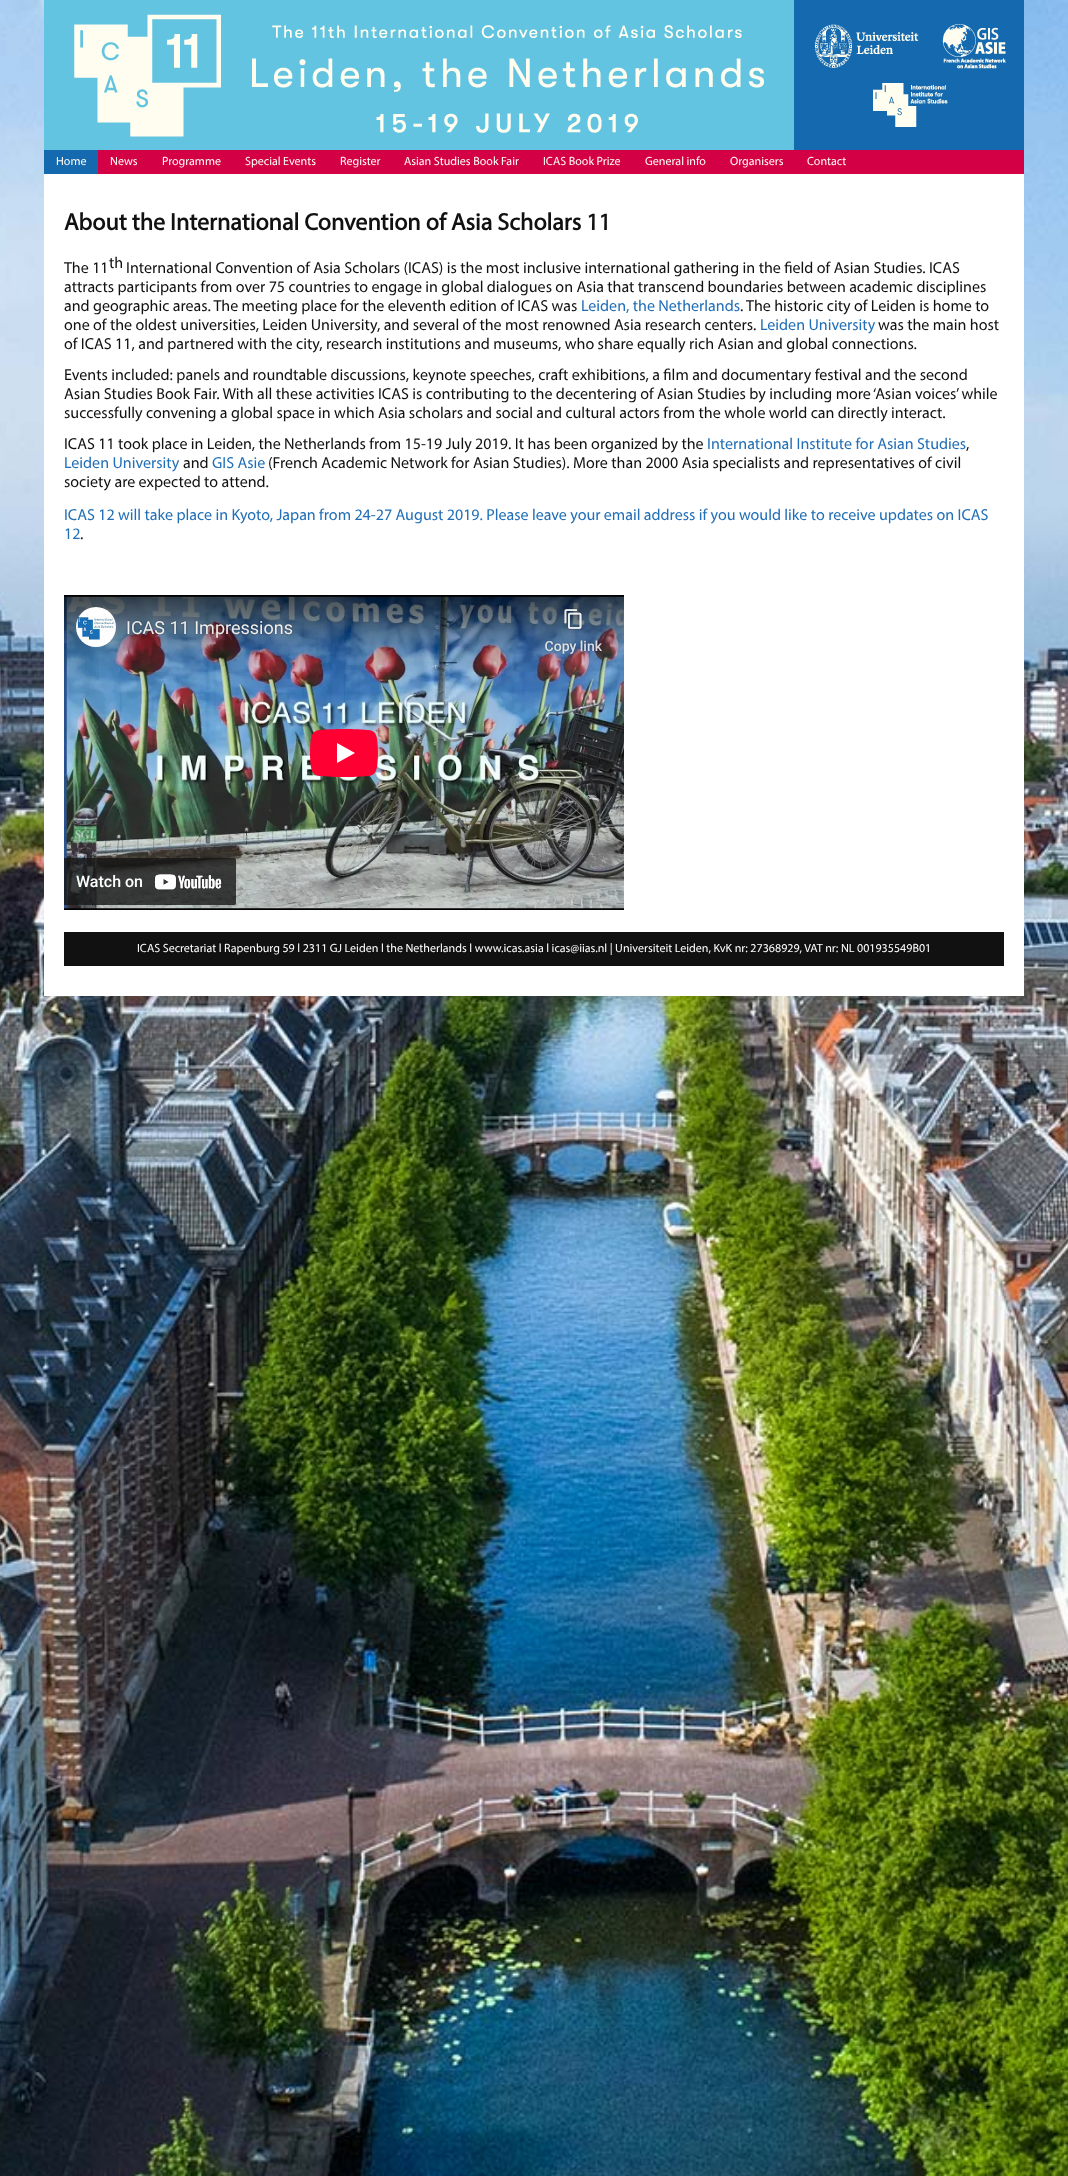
async function draw(canvas) {
  canvas.width = 1068;
  canvas.height = 2176;
  const ctx = canvas.getContext('2d');
  ctx.miterLimit = 4;
  ctx.fontKerning = 'normal';
  function label(s, x, y, font, color) {
    ctx.font = font;
    ctx.fillStyle = color;
    ctx.fillText(s, x, y);
  }
  function rect(x, y, w, h, color) {
    ctx.fillStyle = color;
    ctx.fillRect(x, y, w, h);
  }
  async function image(src, x, y, w, h) {
    const img = new Image();
    img.src = src;
    await img.decode();
    ctx.drawImage(img, x, y, w, h);
  }

  rect(0, 0, 1068, 2176, '#fff');
  await image('assets/img1.png', 0, 0, 1068, 2176);
  rect(44, 174, 980, 822, '#fff');
  await image('assets/img2.png', 44, 0, 980, 150);
  rect(98, 150, 926, 24, '#d40046');
  rect(44, 150, 54, 24, '#156aaf');
  label('Home', 56, 165, '12px Myriad', '#fffcf0');
  label('News', 110, 165, '12px Myriad', '#fffcf0');
  label('Programme', 162, 165, '12px Myriad', '#fffcf0');
  label('Special Events', 245, 165, '12px Myriad', '#fffcf0');
  label('Register', 340, 165, '12px Myriad', '#fffcf0');
  label('Asian Studies Book Fair', 404, 165, '12px Myriad', '#fffcf0');
  label('ICAS Book Prize', 543, 165, '12px Myriad', '#fffcf0');
  label('General info', 645, 165, '12px Myriad', '#fffcf0');
  label('Organisers', 730, 165, '12px Myriad', '#fffcf0');
  label('Contact', 807, 165, '12px Myriad', '#fffcf0');
  label('About the International Convention of Asia Scholars 11', 64, 230, 'bold 24px Myriad', '#111');
  label('The 11', 64, 273, '16px Myriad', '#111');
  label('th', 109, 268, '16px Myriad', '#111');
  label('International Convention of Asia Scholars (ICAS) is the most inclusive international gathering in the field of Asian Studies. ICAS', 126, 273, '16px Myriad', '#111');
  label('attracts participants from over 75 countries to engage in global dialogues on Asia that transcend boundaries between academic disciplines', 64, 292, '16px Myriad', '#111');
  label('and geographic areas. The meeting place for the eleventh edition of ICAS was', 64, 311, '16px Myriad', '#111');
  label('Leiden, the Netherlands', 581, 311, '16px Myriad', '#226fb7');
  label('. The historic city of Leiden is home to', 740, 311, '16px Myriad', '#111');
  label('one of the oldest universities, Leiden University, and several of the most renowned Asia research centers.', 64, 330, '16px Myriad', '#111');
  label('Leiden University', 760, 330, '16px Myriad', '#226fb7');
  label('was the main host', 878, 330, '16px Myriad', '#111');
  label('of ICAS 11, and partnered with the city, research institutions and museums, who share equally rich Asian and global connections.', 64, 349, '16px Myriad', '#111');
  label('Events included: panels and roundtable discussions, keynote speeches, craft exhibitions, a film and documentary festival and the second', 64, 380, '16px Myriad', '#111');
  label('Asian Studies Book Fair. With all these activities ICAS is contributing to the decentering of Asian Studies by including more ‘Asian voices’ while', 64, 399, '16px Myriad', '#111');
  label('successfully convening a global space in which Asia scholars and social and cultural actors from the whole world can directly interact.', 64, 418, '16px Myriad', '#111');
  label('ICAS 11 took place in Leiden, the Netherlands from 15-19 July 2019. It has been organized by the', 64, 449, '16px Myriad', '#111');
  label('International Institute for Asian Studies', 707, 449, '16px Myriad', '#226fb7');
  label(',', 966, 449, '16px Myriad', '#111');
  label('Leiden University', 64, 468, '16px Myriad', '#226fb7');
  label('and', 183, 468, '16px Myriad', '#111');
  label('GIS Asie', 212, 468, '16px Myriad', '#226fb7');
  label('(French Academic Network for Asian Studies). More than 2000 Asia specialists and representatives of civil', 268, 468, '16px Myriad', '#111');
  label('society are expected to attend.', 64, 487, '16px Myriad', '#111');
  label('ICAS 12 will take place in Kyoto, Japan from 24-27 August 2019. Please leave your email address if you would like to receive updates on ICAS', 64, 520, '16px Myriad', '#226fb7');
  label('12', 64, 539, '16px Myriad', '#226fb7');
  label('.', 80, 539, '16px Myriad', '#111');
  await image('assets/img3.png', 64, 595, 560, 315);
  rect(64, 932, 940, 34, '#111');
  label('ICAS Secretariat l Rapenburg 59 l 2311 GJ Leiden l the Netherlands l www.icas.asia l icas@iias.nl | Universiteit Leiden, KvK nr: 27368929, VAT nr: NL 001935549B01', 137, 952, '12px Myriad', '#fff');
}

draw(document.querySelector('canvas'));
